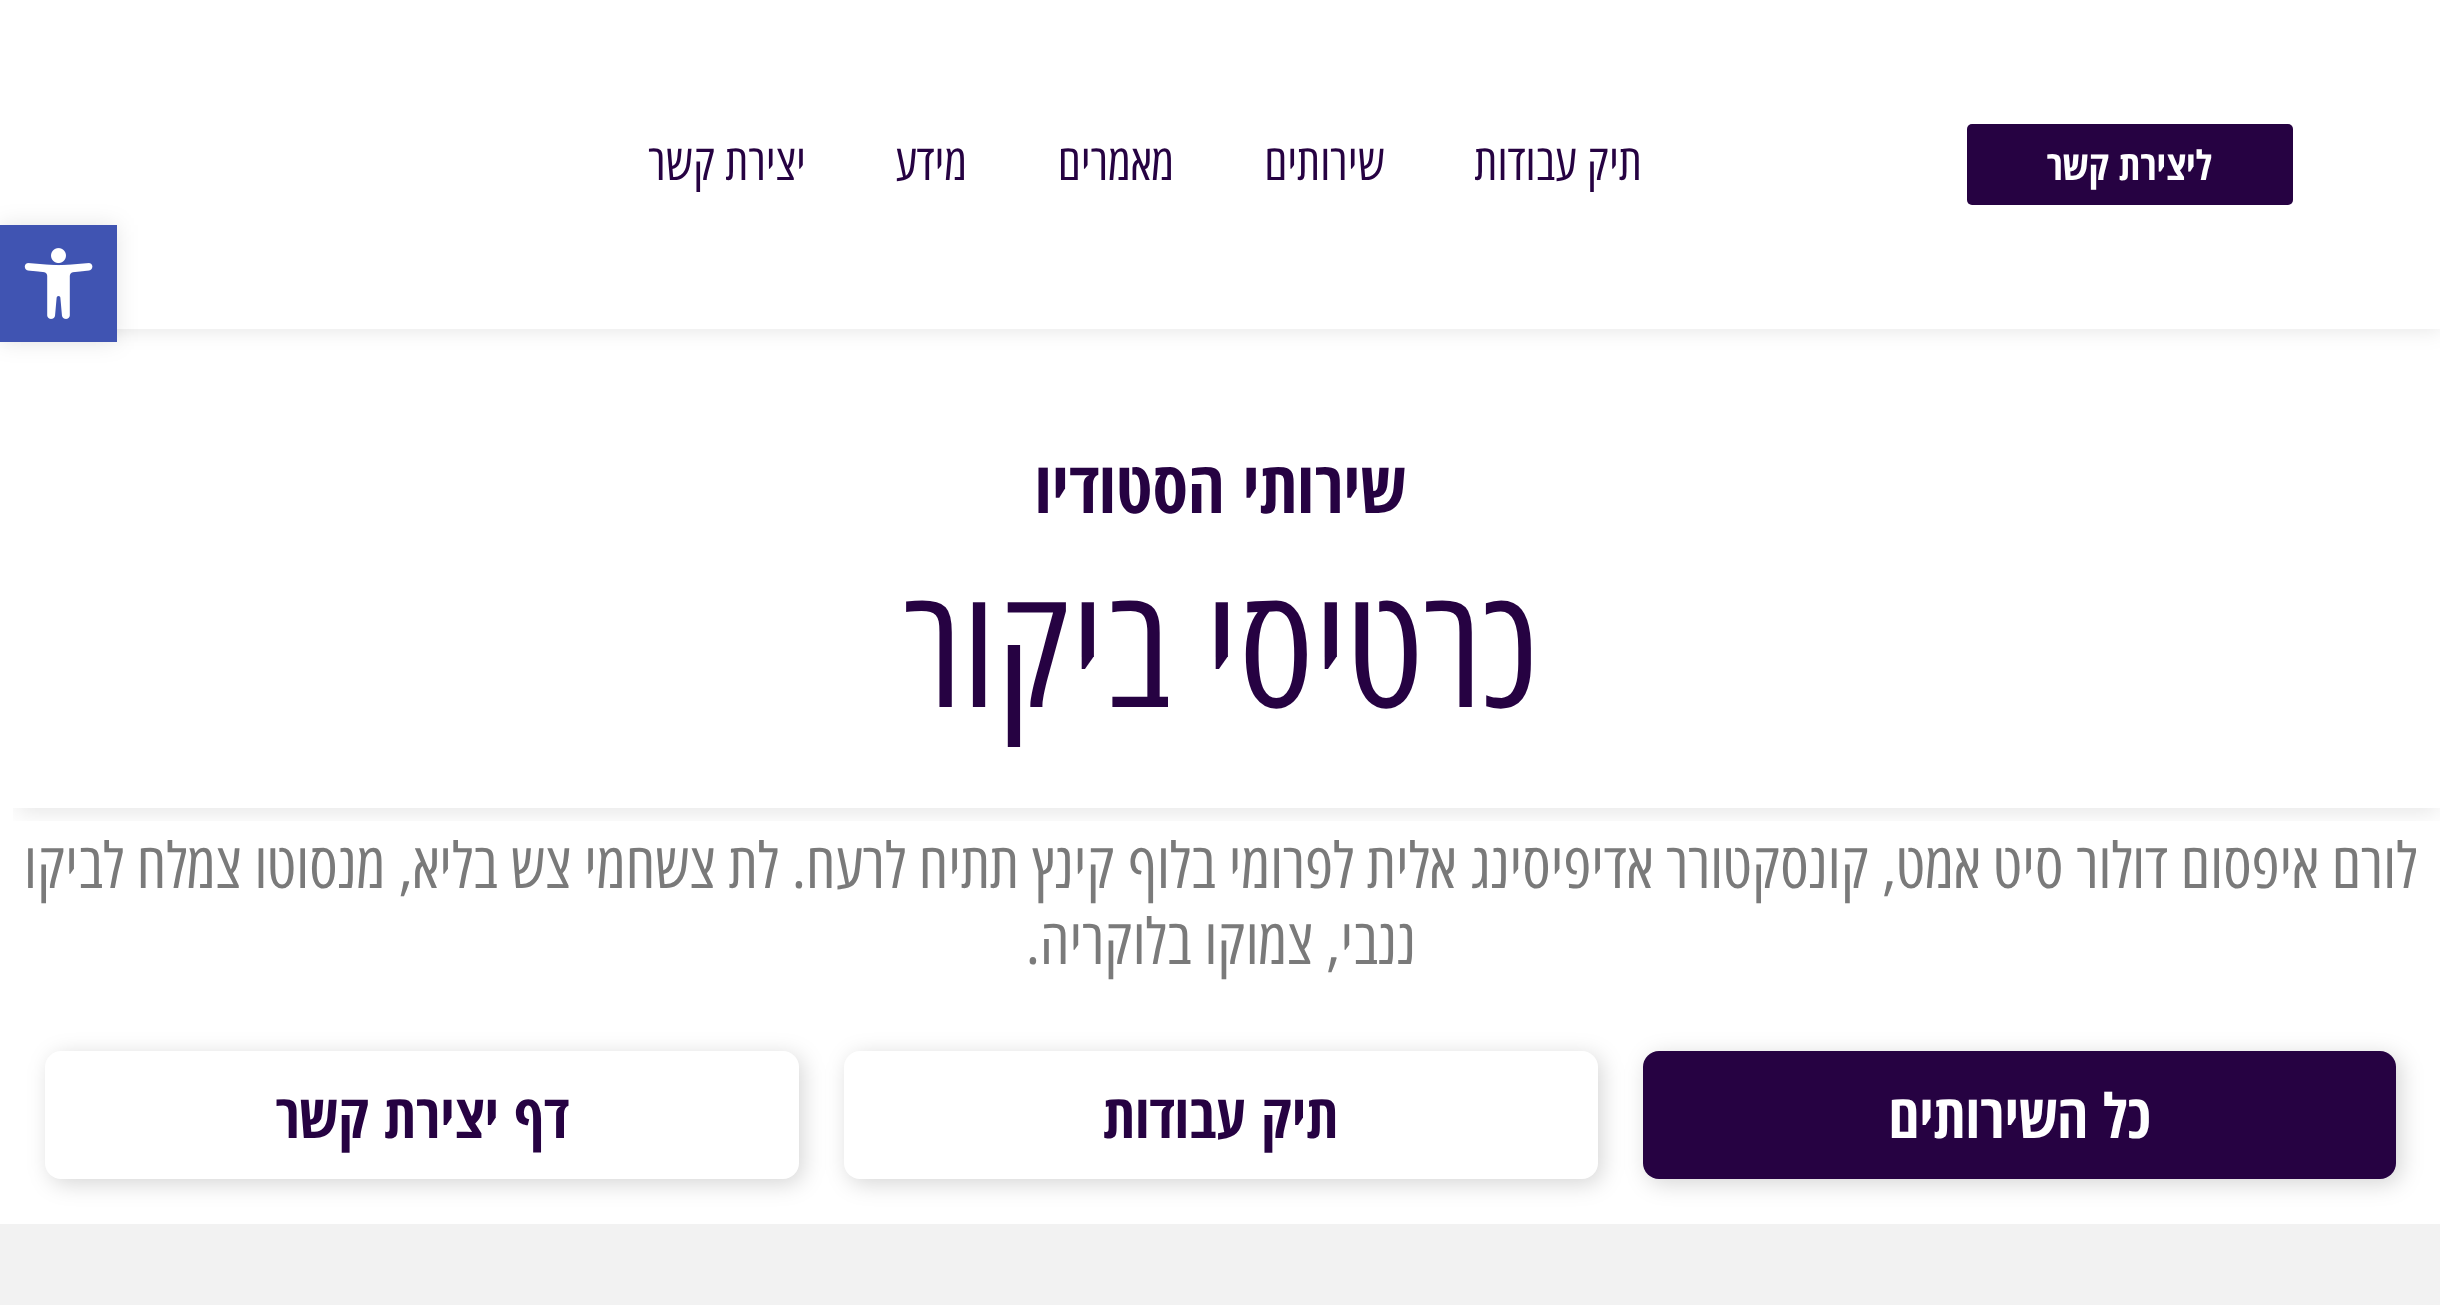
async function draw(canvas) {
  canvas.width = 2440;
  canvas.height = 1305;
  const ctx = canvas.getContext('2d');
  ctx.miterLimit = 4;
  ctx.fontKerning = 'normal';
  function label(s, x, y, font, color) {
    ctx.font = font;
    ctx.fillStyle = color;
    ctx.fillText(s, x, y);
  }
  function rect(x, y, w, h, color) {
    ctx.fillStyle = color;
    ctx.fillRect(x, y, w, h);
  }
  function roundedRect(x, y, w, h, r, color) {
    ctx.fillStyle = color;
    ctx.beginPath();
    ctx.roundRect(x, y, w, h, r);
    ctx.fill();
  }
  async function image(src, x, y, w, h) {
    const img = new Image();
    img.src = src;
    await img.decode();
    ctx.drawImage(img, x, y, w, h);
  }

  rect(0, 0, 2440, 1305, '#fff');
  ctx.fillStyle = '#0000001c';
  ctx.filter = 'blur(11px)';
  ctx.beginPath();
  ctx.rect(0, 0, 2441, 329);
  ctx.fill();
  ctx.filter = 'none';
  ctx.save();
  ctx.beginPath();
  ctx.rect(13, 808, 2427, 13);
  ctx.clip();
  ctx.fillStyle = '#0000001a';
  ctx.filter = 'blur(11px)';
  ctx.beginPath();
  ctx.rect(18, 356, 2419, 456);
  ctx.fill();
  ctx.filter = 'none';
  ctx.restore();
  rect(0, 0, 2440, 329, '#fff');
  roundedRect(1967, 124, 326, 81, 5, '#260242');
  ctx.direction = 'rtl';
  label('ליצירת קשר', 2212, 180, 'bold 40.5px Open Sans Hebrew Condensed', '#fff');
  label('תיק עבודות', 1642, 180, '49.5px Open Sans Hebrew Condensed', '#260242');
  label('שירותים', 1385, 180, '49.5px Open Sans Hebrew Condensed', '#260242');
  label('מאמרים', 1174, 180, '49.5px Open Sans Hebrew Condensed', '#260242');
  label('מידע', 967, 180, '49.5px Open Sans Hebrew Condensed', '#260242');
  label('יצירת קשר', 806, 180, '49.5px Open Sans Hebrew Condensed', '#260242');
  ctx.fillStyle = '#0000001a';
  ctx.filter = 'blur(11px)';
  ctx.beginPath();
  ctx.rect(0, 225, 117, 117);
  ctx.fill();
  ctx.filter = 'none';
  rect(0, 225, 117, 117, '#4054b2');
  await image('assets/img1.png', 24, 248, 69, 71);
  label('שירותי הסטודיו', 1406, 513, 'bold 72px Open Sans Hebrew Condensed', '#260242');
  label('כרטיסי ביקור', 1538, 707, '166.5px Open Sans Hebrew Condensed', '#260242');
  label('לורם איפסום דולור סיט אמט, קונסקטורר אדיפיסינג אלית לפרומי בלוף קינץ תתיח לרעח. לת צשחמי צש בליא, מנסוטו צמלח לביקו', 2417, 888, '63px Open Sans Hebrew Condensed', '#7a7a7a');
  label('ננבי, צמוקו בלוקריה.', 1416, 964, '63px Open Sans Hebrew Condensed', '#7a7a7a');
  ctx.fillStyle = '#00000029';
  ctx.filter = 'blur(11px)';
  ctx.beginPath();
  ctx.roundRect(1647, 1055, 754, 129, 16);
  ctx.fill();
  ctx.filter = 'none';
  roundedRect(1643, 1051, 753, 128, 16, '#260242');
  label('כל השירותים', 2151, 1138, 'bold 60.75px Open Sans Hebrew Condensed', '#fff');
  ctx.fillStyle = '#00000029';
  ctx.filter = 'blur(11px)';
  ctx.beginPath();
  ctx.roundRect(848, 1055, 754, 129, 16);
  ctx.fill();
  ctx.filter = 'none';
  roundedRect(844, 1051, 754, 128, 16, '#fff');
  label('תיק עבודות', 1338, 1138, 'bold 60.75px Open Sans Hebrew Condensed', '#260242');
  ctx.fillStyle = '#00000029';
  ctx.filter = 'blur(11px)';
  ctx.beginPath();
  ctx.roundRect(50, 1055, 753, 129, 16);
  ctx.fill();
  ctx.filter = 'none';
  roundedRect(45, 1051, 754, 128, 16, '#fff');
  label('דף יצירת קשר', 569, 1138, 'bold 60.75px Open Sans Hebrew Condensed', '#260242');
  rect(0, 1224, 2440, 81, '#f2f2f2');
}

draw(document.querySelector('canvas'));
